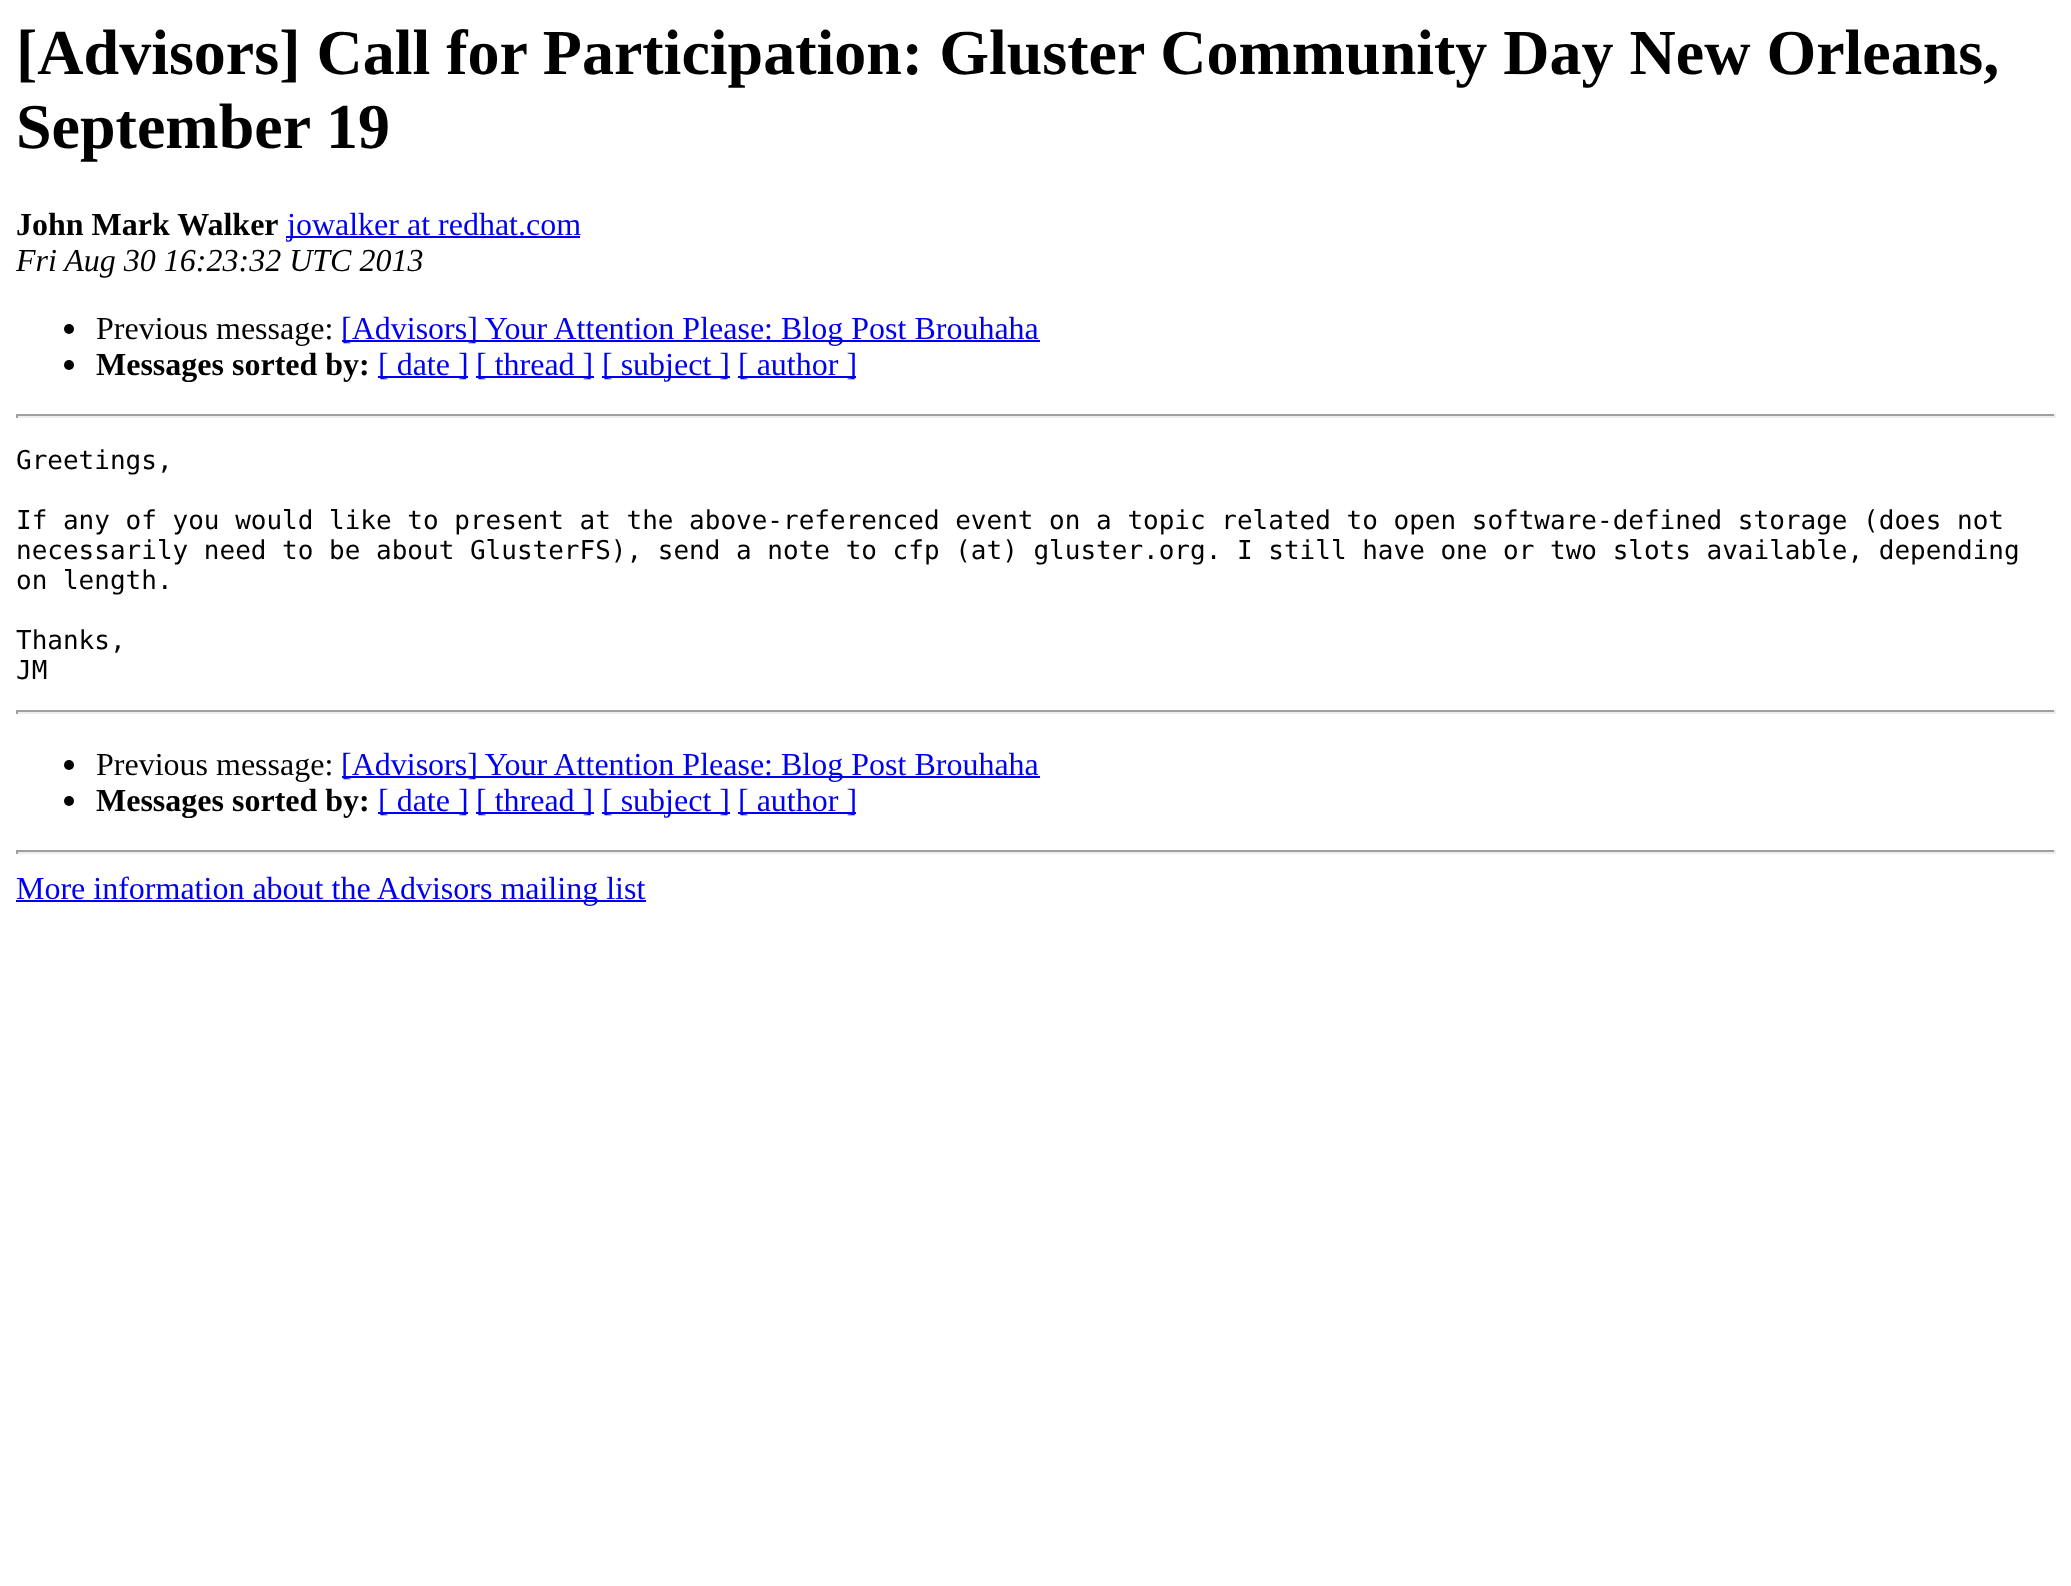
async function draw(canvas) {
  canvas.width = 2071;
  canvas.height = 1586;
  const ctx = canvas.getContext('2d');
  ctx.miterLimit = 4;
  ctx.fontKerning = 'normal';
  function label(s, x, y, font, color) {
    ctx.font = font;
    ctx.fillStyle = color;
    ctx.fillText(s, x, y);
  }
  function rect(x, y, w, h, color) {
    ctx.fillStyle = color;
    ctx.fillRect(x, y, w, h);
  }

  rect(0, 0, 2071, 1586, '#fff');
  label('[Advisors] Call for Participation: Gluster Community Day New Orleans,', 16, 74, 'bold 64px Liberation Serif', '#000');
  label('September 19', 16, 148, 'bold 64px Liberation Serif', '#000');
  label('John Mark Walker', 16, 235, 'bold 32px Liberation Serif', '#000');
  rect(286, 236, 294, 2, '#00e');
  label('jowalker at redhat.com', 287, 235, '32px Liberation Serif', '#00e');
  label('Fri Aug 30 16:23:32 UTC 2013', 16, 271, 'italic 32px Liberation Serif', '#000');
  ctx.beginPath();
  ctx.arc(69, 329, 5, 0, 2 * Math.PI);
  ctx.fill();
  label('Previous message:', 96, 339, '32px Liberation Serif', '#000');
  rect(342, 340, 698, 2, '#00e');
  label('[Advisors] Your Attention Please: Blog Post Brouhaha', 341, 339, '32px Liberation Serif', '#00e');
  ctx.fillStyle = '#000';
  ctx.beginPath();
  ctx.arc(69, 365, 5, 0, 2 * Math.PI);
  ctx.fill();
  label('Messages sorted by:', 96, 375, 'bold 32px Liberation Serif', '#000');
  rect(378, 376, 90, 2, '#00e');
  label('[ date ]', 378, 375, '32px Liberation Serif', '#00e');
  rect(476, 376, 118, 2, '#00e');
  label('[ thread ]', 476, 375, '32px Liberation Serif', '#00e');
  rect(602, 376, 128, 2, '#00e');
  label('[ subject ]', 602, 375, '32px Liberation Serif', '#00e');
  rect(738, 376, 118, 2, '#00e');
  label('[ author ]', 738, 375, '32px Liberation Serif', '#00e');
  rect(16, 414, 2040, 2, '#9f9f9f');
  rect(2054, 414, 2, 4, '#eee');
  rect(16, 416, 2040, 2, '#eee');
  rect(16, 414, 2, 4, '#9f9f9f');
  label('Greetings,', 16, 469, '26px DejaVu Sans Mono', '#000');
  label('If any of you would like to present at the above-referenced event on a topic related to open software-defined storage (does not', 16, 529, '26px DejaVu Sans Mono', '#000');
  label('necessarily need to be about GlusterFS), send a note to cfp (at) gluster.org. I still have one or two slots available, depending', 16, 559, '26px DejaVu Sans Mono', '#000');
  label('on length.', 16, 589, '26px DejaVu Sans Mono', '#000');
  label('Thanks,', 16, 649, '26px DejaVu Sans Mono', '#000');
  label('JM', 16, 679, '26px DejaVu Sans Mono', '#000');
  rect(16, 710, 2040, 2, '#9f9f9f');
  rect(2054, 710, 2, 4, '#eee');
  rect(16, 712, 2040, 2, '#eee');
  rect(16, 710, 2, 4, '#9f9f9f');
  ctx.fillStyle = '#000';
  ctx.beginPath();
  ctx.arc(69, 765, 5, 0, 2 * Math.PI);
  ctx.fill();
  label('Previous message:', 96, 775, '32px Liberation Serif', '#000');
  rect(342, 776, 698, 2, '#00e');
  label('[Advisors] Your Attention Please: Blog Post Brouhaha', 341, 775, '32px Liberation Serif', '#00e');
  ctx.fillStyle = '#000';
  ctx.beginPath();
  ctx.arc(69, 801, 5, 0, 2 * Math.PI);
  ctx.fill();
  label('Messages sorted by:', 96, 811, 'bold 32px Liberation Serif', '#000');
  rect(378, 812, 90, 2, '#00e');
  label('[ date ]', 378, 811, '32px Liberation Serif', '#00e');
  rect(476, 812, 118, 2, '#00e');
  label('[ thread ]', 476, 811, '32px Liberation Serif', '#00e');
  rect(602, 812, 128, 2, '#00e');
  label('[ subject ]', 602, 811, '32px Liberation Serif', '#00e');
  rect(738, 812, 118, 2, '#00e');
  label('[ author ]', 738, 811, '32px Liberation Serif', '#00e');
  rect(16, 850, 2040, 2, '#9f9f9f');
  rect(2054, 850, 2, 4, '#eee');
  rect(16, 852, 2040, 2, '#eee');
  rect(16, 850, 2, 4, '#9f9f9f');
  rect(16, 900, 630, 2, '#00e');
  label('More information about the Advisors mailing list', 16, 899, '32px Liberation Serif', '#00e');
}

draw(document.querySelector('canvas'));
